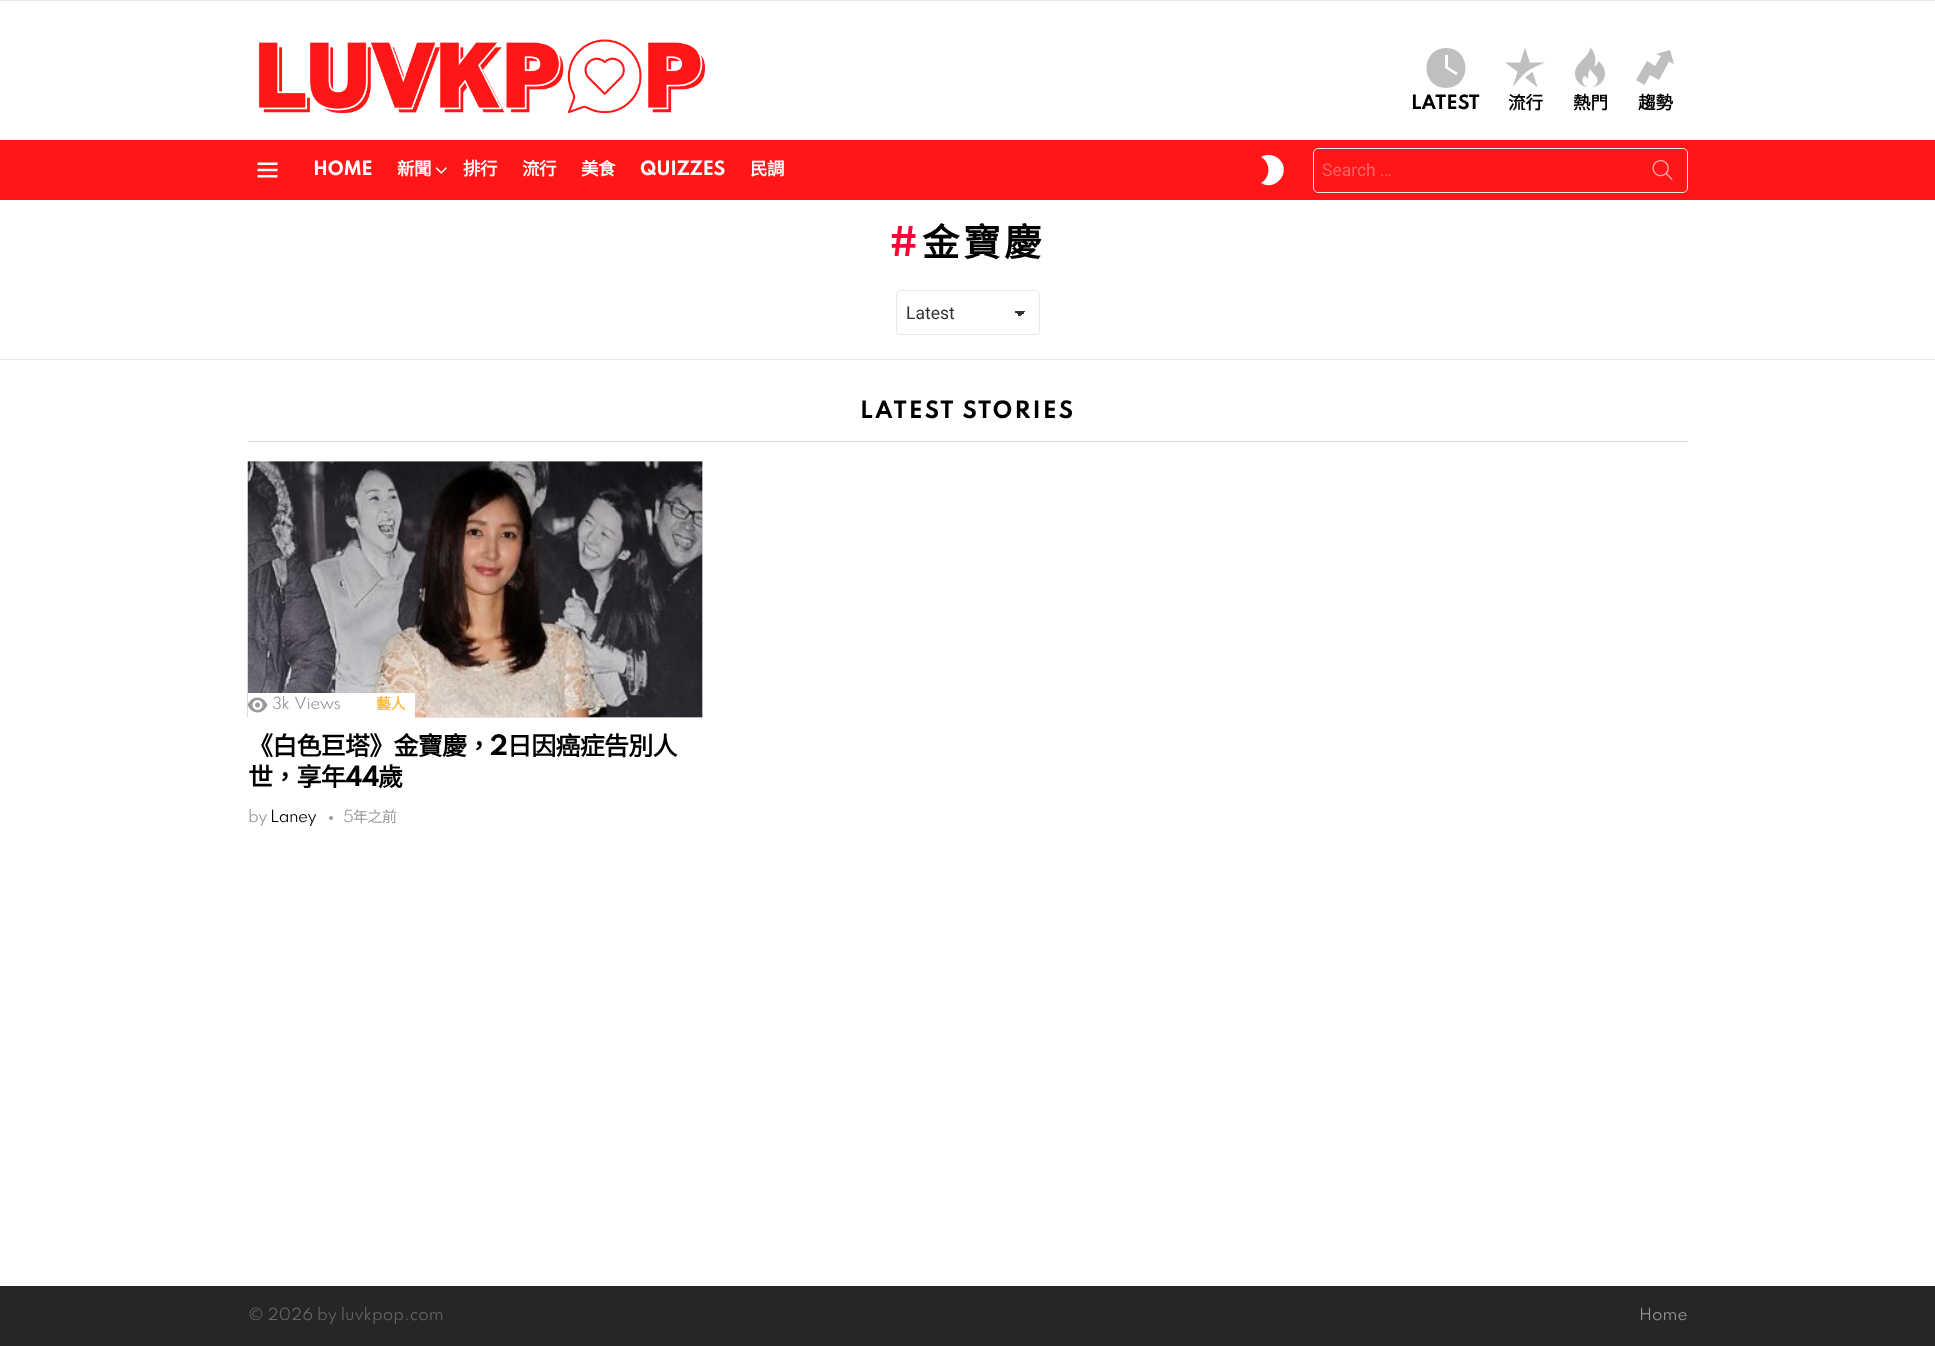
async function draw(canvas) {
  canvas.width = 1935;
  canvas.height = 1346;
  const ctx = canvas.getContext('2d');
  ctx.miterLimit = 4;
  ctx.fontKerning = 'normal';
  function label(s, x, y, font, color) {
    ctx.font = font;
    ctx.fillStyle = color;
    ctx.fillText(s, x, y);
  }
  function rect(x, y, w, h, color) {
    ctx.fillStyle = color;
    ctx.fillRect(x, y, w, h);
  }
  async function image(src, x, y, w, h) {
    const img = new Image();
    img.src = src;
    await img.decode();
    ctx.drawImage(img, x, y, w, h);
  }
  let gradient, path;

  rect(0, 0, 1935, 1346, '#fff');
  rect(0, 0, 1935, 1, '#e6e6e6');
  await image('assets/img1.png', 258, 39, 448, 74);
  ctx.fillStyle = '#bfbfbf';
  path = new Path2D('M1446 48C1420 48 1420 88 1446 88C1472 88 1472 48 1446 48ZM1456 75L1445 68V55H1448V67L1458 73Z');
  ctx.fill(path);
  label('LATEST', 1411, 109, '100 17.5px "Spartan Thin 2"', '#000');
  await image('assets/img2.png', 1505, 48, 40, 40);
  label('流行', 1508, 109, 'bold 17.5px Noto Sans CJK TC', '#000');
  await image('assets/img3.png', 1575, 47, 30, 41);
  label('熱門', 1573, 109, 'bold 17.5px Noto Sans CJK TC', '#000');
  ctx.fillStyle = '#bfbfbf';
  path = new Path2D('M1655 66L1661 56L1656 54L1670 50L1674 64L1669 61.5L1659 80L1650 75L1644.5 85L1636 80L1647 61Z');
  ctx.fill(path);
  label('趨勢', 1638, 109, 'bold 17.5px Noto Sans CJK TC', '#000');
  rect(0, 140, 1935, 60, '#ff1616');
  await image('assets/img4.png', 257, 162, 21, 16);
  ctx.letterSpacing = '-0.5px';
  label('HOME', 313, 175, '100 17.5px "Spartan Thin 2"', '#fff');
  label('新聞', 397, 175, 'bold 17.5px Noto Sans CJK TC', '#fff');
  await image('assets/img5.png', 435, 167, 12, 7);
  label('排行', 463, 175, 'bold 17.5px Noto Sans CJK TC', '#fff');
  label('流行', 522, 175, 'bold 17.5px Noto Sans CJK TC', '#fff');
  label('美食', 581, 175, 'bold 17.5px Noto Sans CJK TC', '#fff');
  label('QUIZZES', 640, 175, '100 17.5px "Spartan Thin 2"', '#fff');
  label('民調', 750, 175, 'bold 17.5px Noto Sans CJK TC', '#fff');
  path = new Path2D('M1269 155C1266 155 1263.5 155.5 1261 157C1271 163 1271 177 1261 183C1276.5 192 1292 171 1279 159C1276 156.5 1272.5 155 1269 155Z');
  ctx.fill(path);
  ctx.beginPath();
  ctx.roundRect(1313.5, 148.5, 374, 44, 4.5);
  ctx.strokeStyle = '#e6e6e6';
  ctx.stroke();
  ctx.letterSpacing = '0px';
  label('Search …', 1322, 176, '17.5px Roboto', '#ff6363');
  await image('assets/img6.png', 1652, 160, 21, 20);
  ctx.letterSpacing = '3.5px';
  label('#', 889, 256, '100 37.5px "Spartan Thin 2"', '#ff0036');
  label('金寶慶', 922, 256, 'bold 37.5px Noto Sans CJK TC', '#000');
  gradient = ctx.createLinearGradient(1020, 311, 1026, 317);
  gradient.addColorStop(0.5, '#333');
  gradient.addColorStop(0.5, '#fff');
  ctx.fillStyle = gradient;
  ctx.fillRect(1020, 311, 6, 5);
  gradient = ctx.createLinearGradient(1014, 317, 1020, 311);
  gradient.addColorStop(0.5, '#fff');
  gradient.addColorStop(0.5, '#333');
  ctx.fillStyle = gradient;
  ctx.fillRect(1014, 311, 6, 5);
  ctx.beginPath();
  ctx.roundRect(896.5, 290.5, 143, 44, 4.5);
  ctx.stroke();
  ctx.letterSpacing = '0px';
  label('Latest', 906, 319, '17.5px Roboto', '#333');
  rect(0, 359, 1935, 1, '#e6e6e6');
  ctx.letterSpacing = '2px';
  label('LATEST STORIES', 860, 418, '100 21.25px "Spartan Thin 2"', '#000');
  rect(248, 441, 1440, 1, '#d4d4d4');
  rect(248, 461, 455, 257, '#e6e6e6');
  await image('assets/img7.png', 247, 461, 456, 257);
  rect(248, 693, 167, 25, '#fff');
  await image('assets/img8.png', 247, 697, 21, 16);
  ctx.letterSpacing = '-0.5px';
  label('3k', 272, 709, '100 15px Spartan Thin', '#999');
  label('Views', 294, 709, '100 15px Spartan Thin', '#999');
  label('藝人', 376, 709, 'bold 15px Noto Sans CJK TC', '#ffbc42');
  ctx.letterSpacing = '-0.75px';
  label('《白色巨塔》金寶慶，', 248, 755, 'bold 25px Noto Sans CJK TC', '#000');
  label('2', 490, 755, '100 25px "Spartan Thin 2"', '#000');
  label('日因癌症告別人', 507, 755, 'bold 25px Noto Sans CJK TC', '#000');
  label('世，享年', 248, 786, 'bold 25px Noto Sans CJK TC', '#000');
  label('44', 345, 786, '100 25px "Spartan Thin 2"', '#000');
  label('歲', 378, 786, 'bold 25px Noto Sans CJK TC', '#000');
  ctx.letterSpacing = '-0.5px';
  label('by', 248, 822, '100 15px Spartan Thin', '#999');
  label('Laney', 270, 822, '100 15px Spartan Thin', '#000');
  ctx.fillStyle = '#999';
  ctx.beginPath();
  ctx.arc(331, 818, 2, 0, 2 * Math.PI);
  ctx.fill();
  label('5', 343, 822, '100 15px Spartan Thin', '#999');
  label('年之前', 353, 822, '15px Noto Sans CJK TC', '#999');
  rect(0, 1286, 1935, 60, '#262626');
  ctx.letterSpacing = '0px';
  label('© 2026 by luvkpop.com', 248, 1320, '100 15px Spartan Thin', '#666');
  label('Home', 1639, 1320, '100 15px Spartan Thin', '#999');
}

draw(document.querySelector('canvas'));
